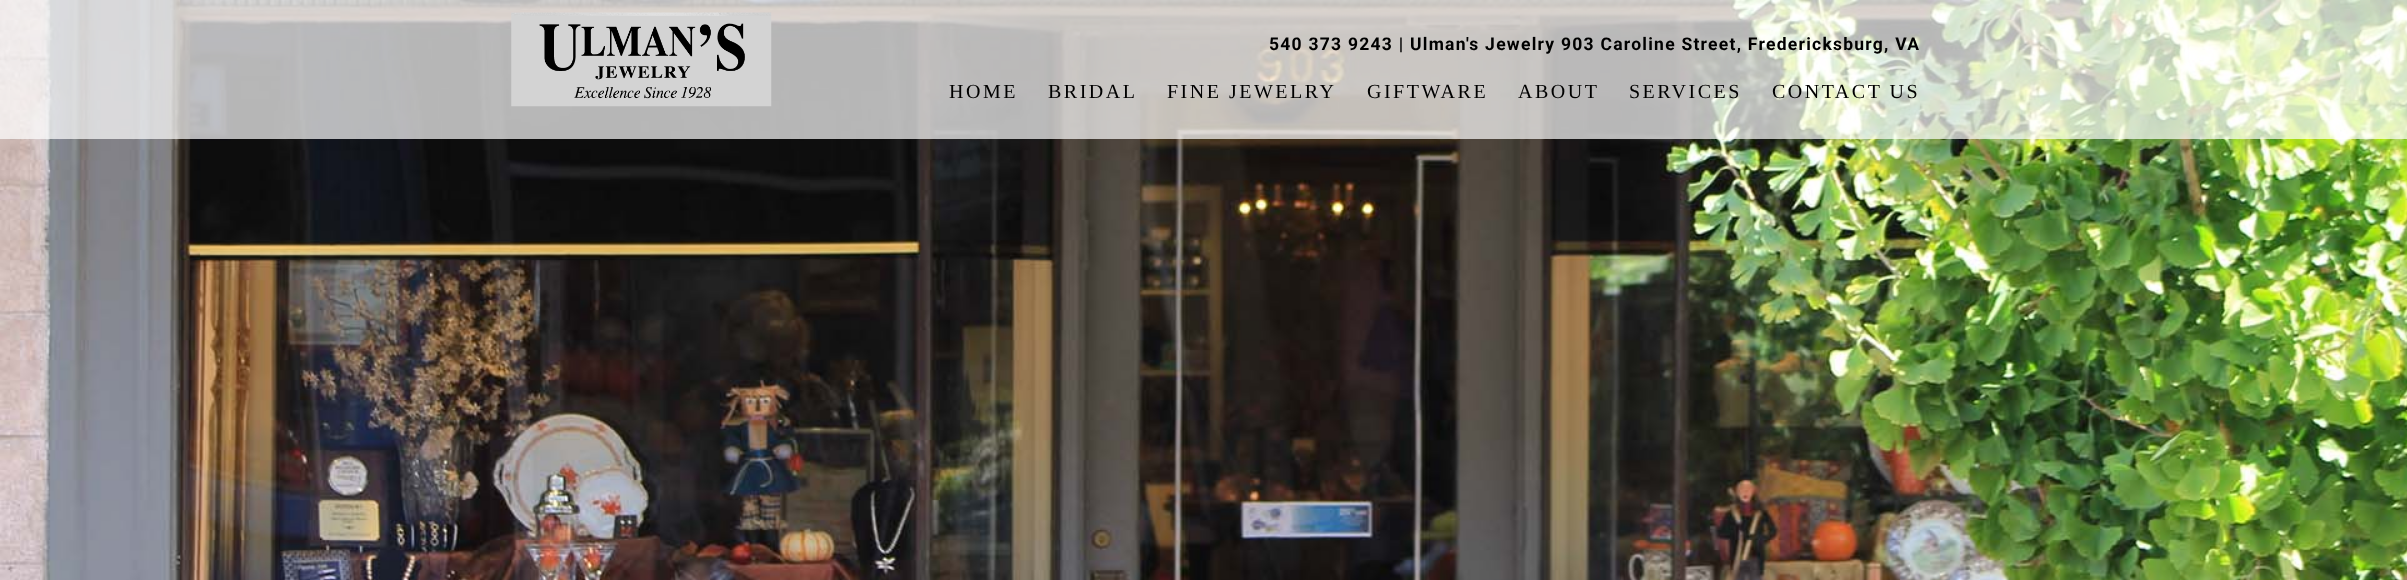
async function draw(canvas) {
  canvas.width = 2407;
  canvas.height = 580;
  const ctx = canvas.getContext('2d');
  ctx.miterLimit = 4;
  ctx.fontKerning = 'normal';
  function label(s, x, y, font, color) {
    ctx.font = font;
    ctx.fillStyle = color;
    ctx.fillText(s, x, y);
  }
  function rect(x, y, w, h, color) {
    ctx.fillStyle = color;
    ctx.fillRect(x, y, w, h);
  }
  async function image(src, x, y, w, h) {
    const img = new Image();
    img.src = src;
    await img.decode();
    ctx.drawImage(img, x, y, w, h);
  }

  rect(0, 0, 2407, 580, '#fff');
  await image('assets/img1.png', 0, 0, 2407, 580);
  rect(0, 0, 2407, 139, '#ffffffb3');
  await image('assets/img2.png', 511, 12, 261, 95);
  ctx.letterSpacing = '1.25px';
  label('540 373 9243 | Ulman\'s Jewelry 903 Caroline Street, Fredericksburg, VA', 1269, 50, 'bold 17.5px Roboto', '#000');
  ctx.letterSpacing = '2.5px';
  label('HOME', 949, 98, '20px Liberation Serif', '#000');
  label('BRIDAL', 1048, 98, '20px Liberation Serif', '#000');
  label('FINE JEWELRY', 1167, 98, '20px Liberation Serif', '#000');
  label('GIFTWARE', 1367, 98, '20px Liberation Serif', '#000');
  label('ABOUT', 1518, 98, '20px Liberation Serif', '#000');
  label('SERVICES', 1629, 98, '20px Liberation Serif', '#000');
  label('CONTACT US', 1772, 98, '20px Liberation Serif', '#000');
}

draw(document.querySelector('canvas'));
